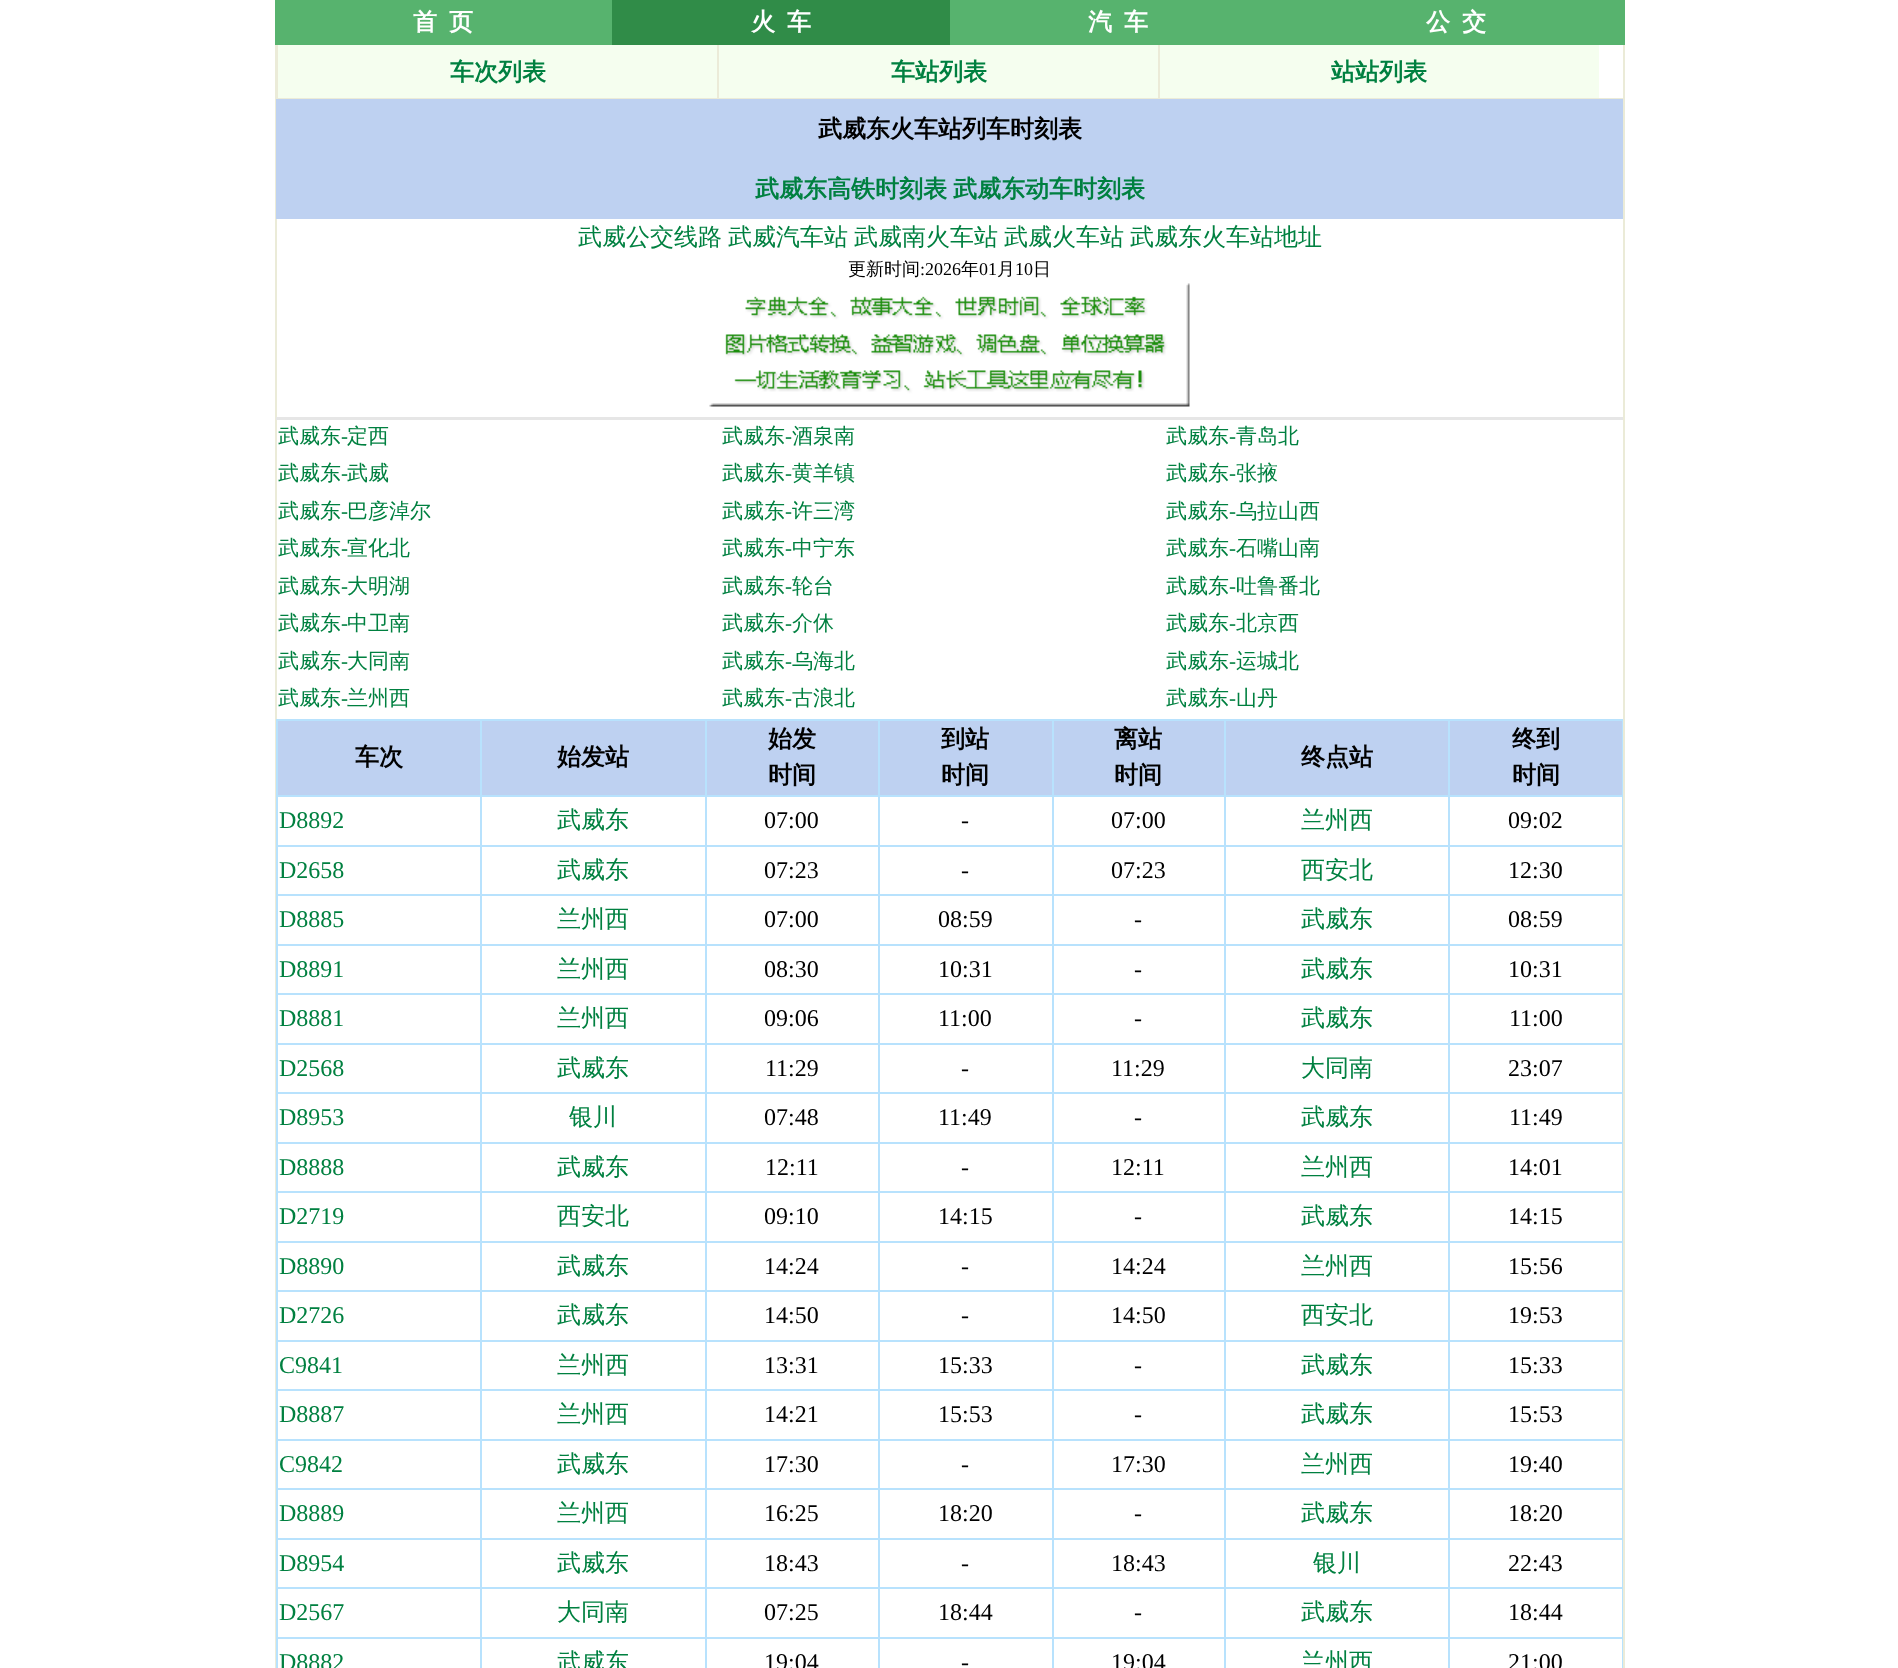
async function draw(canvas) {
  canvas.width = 1898;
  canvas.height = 1668;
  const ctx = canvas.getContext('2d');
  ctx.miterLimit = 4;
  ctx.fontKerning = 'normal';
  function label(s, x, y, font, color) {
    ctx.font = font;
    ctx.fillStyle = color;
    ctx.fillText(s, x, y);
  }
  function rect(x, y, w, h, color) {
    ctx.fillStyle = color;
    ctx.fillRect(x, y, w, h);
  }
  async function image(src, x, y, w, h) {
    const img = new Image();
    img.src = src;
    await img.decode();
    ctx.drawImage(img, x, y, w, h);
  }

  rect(0, 0, 1898, 1668, '#fff');
  rect(275, 0, 337, 45, '#57b36e');
  label('首', 413, 30, 'bold 24px WenQuanYi Zen Hei', '#fff');
  label('页', 449, 30, 'bold 24px WenQuanYi Zen Hei', '#fff');
  rect(612, 0, 338, 45, '#308c48');
  label('火', 751, 30, 'bold 24px WenQuanYi Zen Hei', '#fff');
  label('车', 787, 30, 'bold 24px WenQuanYi Zen Hei', '#fff');
  rect(950, 0, 675, 45, '#57b36e');
  label('汽', 1088, 30, 'bold 24px WenQuanYi Zen Hei', '#fff');
  label('车', 1124, 30, 'bold 24px WenQuanYi Zen Hei', '#fff');
  label('公', 1426, 30, 'bold 24px WenQuanYi Zen Hei', '#fff');
  label('交', 1462, 30, 'bold 24px WenQuanYi Zen Hei', '#fff');
  rect(1623, 45, 2, 1623, '#ebebd8');
  rect(275, 98, 1350, 1, '#ebebd8');
  rect(275, 45, 2, 1623, '#ebebd8');
  rect(278, 45, 439, 53, '#f5feef');
  rect(277, 45, 1, 53, '#ebebd8');
  label('车次列表', 450, 80, 'bold 24px WenQuanYi Zen Hei', '#008040');
  rect(719, 45, 439, 53, '#f5feef');
  rect(717, 45, 2, 53, '#ebebd8');
  label('车站列表', 891, 80, 'bold 24px WenQuanYi Zen Hei', '#008040');
  rect(1160, 45, 439, 53, '#f5feef');
  rect(1158, 45, 2, 53, '#ebebd8');
  label('站站列表', 1331, 80, 'bold 24px WenQuanYi Zen Hei', '#008040');
  rect(276, 99, 1347, 120, '#bed1f1');
  label('武威东火车站列车时刻表', 818, 137, 'bold 24px WenQuanYi Zen Hei', '#000');
  label('武威东高铁时刻表', 755, 197, 'bold 24px WenQuanYi Zen Hei', '#008040');
  label('武威东动车时刻表', 953, 197, 'bold 24px WenQuanYi Zen Hei', '#008040');
  label('武威公交线路', 578, 245, '500 24px WenQuanYi Zen Hei', '#008040');
  label('武威汽车站', 728, 245, '500 24px WenQuanYi Zen Hei', '#008040');
  label('武威南火车站', 854, 245, '500 24px WenQuanYi Zen Hei', '#008040');
  label('武威火车站', 1004, 245, '500 24px WenQuanYi Zen Hei', '#008040');
  label('武威东火车站地址', 1130, 245, '500 24px WenQuanYi Zen Hei', '#008040');
  label('更新时间', 848, 275, '500 18px WenQuanYi Zen Hei', '#000');
  label(':2026', 920, 275, '18px Liberation Serif', '#000');
  label('年', 961, 275, '500 18px WenQuanYi Zen Hei', '#000');
  label('01', 979, 275, '18px Liberation Serif', '#000');
  label('月', 997, 275, '500 18px WenQuanYi Zen Hei', '#000');
  label('10', 1015, 275, '18px Liberation Serif', '#000');
  label('日', 1033, 275, '500 18px WenQuanYi Zen Hei', '#000');
  await image('assets/img1.png', 709, 283, 481, 124);
  rect(276, 417, 1347, 3, '#e6e6e6');
  label('武威东', 278, 443, '500 21px WenQuanYi Zen Hei', '#008040');
  label('-', 341, 443, '21px Liberation Serif', '#008040');
  label('定西', 347, 443, '500 21px WenQuanYi Zen Hei', '#008040');
  label('武威东', 722, 443, '500 21px WenQuanYi Zen Hei', '#008040');
  label('-', 785, 443, '21px Liberation Serif', '#008040');
  label('酒泉南', 792, 443, '500 21px WenQuanYi Zen Hei', '#008040');
  label('武威东', 1166, 443, '500 21px WenQuanYi Zen Hei', '#008040');
  label('-', 1229, 443, '21px Liberation Serif', '#008040');
  label('青岛北', 1236, 443, '500 21px WenQuanYi Zen Hei', '#008040');
  label('武威东', 278, 480, '500 21px WenQuanYi Zen Hei', '#008040');
  label('-', 341, 480, '21px Liberation Serif', '#008040');
  label('武威', 347, 480, '500 21px WenQuanYi Zen Hei', '#008040');
  label('武威东', 722, 480, '500 21px WenQuanYi Zen Hei', '#008040');
  label('-', 785, 480, '21px Liberation Serif', '#008040');
  label('黄羊镇', 792, 480, '500 21px WenQuanYi Zen Hei', '#008040');
  label('武威东', 1166, 480, '500 21px WenQuanYi Zen Hei', '#008040');
  label('-', 1229, 480, '21px Liberation Serif', '#008040');
  label('张掖', 1236, 480, '500 21px WenQuanYi Zen Hei', '#008040');
  label('武威东', 278, 518, '500 21px WenQuanYi Zen Hei', '#008040');
  label('-', 341, 518, '21px Liberation Serif', '#008040');
  label('巴彦淖尔', 347, 518, '500 21px WenQuanYi Zen Hei', '#008040');
  label('武威东', 722, 518, '500 21px WenQuanYi Zen Hei', '#008040');
  label('-', 785, 518, '21px Liberation Serif', '#008040');
  label('许三湾', 792, 518, '500 21px WenQuanYi Zen Hei', '#008040');
  label('武威东', 1166, 518, '500 21px WenQuanYi Zen Hei', '#008040');
  label('-', 1229, 518, '21px Liberation Serif', '#008040');
  label('乌拉山西', 1236, 518, '500 21px WenQuanYi Zen Hei', '#008040');
  label('武威东', 278, 555, '500 21px WenQuanYi Zen Hei', '#008040');
  label('-', 341, 555, '21px Liberation Serif', '#008040');
  label('宣化北', 347, 555, '500 21px WenQuanYi Zen Hei', '#008040');
  label('武威东', 722, 555, '500 21px WenQuanYi Zen Hei', '#008040');
  label('-', 785, 555, '21px Liberation Serif', '#008040');
  label('中宁东', 792, 555, '500 21px WenQuanYi Zen Hei', '#008040');
  label('武威东', 1166, 555, '500 21px WenQuanYi Zen Hei', '#008040');
  label('-', 1229, 555, '21px Liberation Serif', '#008040');
  label('石嘴山南', 1236, 555, '500 21px WenQuanYi Zen Hei', '#008040');
  label('武威东', 278, 593, '500 21px WenQuanYi Zen Hei', '#008040');
  label('-', 341, 593, '21px Liberation Serif', '#008040');
  label('大明湖', 347, 593, '500 21px WenQuanYi Zen Hei', '#008040');
  label('武威东', 722, 593, '500 21px WenQuanYi Zen Hei', '#008040');
  label('-', 785, 593, '21px Liberation Serif', '#008040');
  label('轮台', 792, 593, '500 21px WenQuanYi Zen Hei', '#008040');
  label('武威东', 1166, 593, '500 21px WenQuanYi Zen Hei', '#008040');
  label('-', 1229, 593, '21px Liberation Serif', '#008040');
  label('吐鲁番北', 1236, 593, '500 21px WenQuanYi Zen Hei', '#008040');
  label('武威东', 278, 630, '500 21px WenQuanYi Zen Hei', '#008040');
  label('-', 341, 630, '21px Liberation Serif', '#008040');
  label('中卫南', 347, 630, '500 21px WenQuanYi Zen Hei', '#008040');
  label('武威东', 722, 630, '500 21px WenQuanYi Zen Hei', '#008040');
  label('-', 785, 630, '21px Liberation Serif', '#008040');
  label('介休', 792, 630, '500 21px WenQuanYi Zen Hei', '#008040');
  label('武威东', 1166, 630, '500 21px WenQuanYi Zen Hei', '#008040');
  label('-', 1229, 630, '21px Liberation Serif', '#008040');
  label('北京西', 1236, 630, '500 21px WenQuanYi Zen Hei', '#008040');
  label('武威东', 278, 668, '500 21px WenQuanYi Zen Hei', '#008040');
  label('-', 341, 668, '21px Liberation Serif', '#008040');
  label('大同南', 347, 668, '500 21px WenQuanYi Zen Hei', '#008040');
  label('武威东', 722, 668, '500 21px WenQuanYi Zen Hei', '#008040');
  label('-', 785, 668, '21px Liberation Serif', '#008040');
  label('乌海北', 792, 668, '500 21px WenQuanYi Zen Hei', '#008040');
  label('武威东', 1166, 668, '500 21px WenQuanYi Zen Hei', '#008040');
  label('-', 1229, 668, '21px Liberation Serif', '#008040');
  label('运城北', 1236, 668, '500 21px WenQuanYi Zen Hei', '#008040');
  label('武威东', 278, 705, '500 21px WenQuanYi Zen Hei', '#008040');
  label('-', 341, 705, '21px Liberation Serif', '#008040');
  label('兰州西', 347, 705, '500 21px WenQuanYi Zen Hei', '#008040');
  label('武威东', 722, 705, '500 21px WenQuanYi Zen Hei', '#008040');
  label('-', 785, 705, '21px Liberation Serif', '#008040');
  label('古浪北', 792, 705, '500 21px WenQuanYi Zen Hei', '#008040');
  label('武威东', 1166, 705, '500 21px WenQuanYi Zen Hei', '#008040');
  label('-', 1229, 705, '21px Liberation Serif', '#008040');
  label('山丹', 1236, 705, '500 21px WenQuanYi Zen Hei', '#008040');
  rect(276, 719, 1347, 2, '#b8e2fd');
  rect(1622, 719, 1, 949, '#b8e2fd');
  rect(276, 719, 2, 949, '#b8e2fd');
  rect(278, 721, 1344, 74, '#bed1f1');
  label('车次', 355, 765, 'bold 24px WenQuanYi Zen Hei', '#000');
  rect(1448, 795, 175, 2, '#b8e2fd');
  rect(1448, 845, 175, 2, '#b8e2fd');
  rect(1448, 894, 175, 2, '#b8e2fd');
  rect(1448, 944, 175, 2, '#b8e2fd');
  rect(1448, 993, 175, 2, '#b8e2fd');
  rect(1448, 1043, 175, 2, '#b8e2fd');
  rect(1448, 1092, 175, 2, '#b8e2fd');
  rect(1448, 1142, 175, 2, '#b8e2fd');
  rect(1448, 1191, 175, 2, '#b8e2fd');
  rect(1448, 1241, 175, 2, '#b8e2fd');
  rect(1448, 1290, 175, 2, '#b8e2fd');
  rect(1448, 1340, 175, 2, '#b8e2fd');
  rect(1448, 1389, 175, 2, '#b8e2fd');
  rect(1448, 1439, 175, 2, '#b8e2fd');
  rect(1448, 1488, 175, 2, '#b8e2fd');
  rect(1448, 1538, 175, 2, '#b8e2fd');
  rect(1448, 1587, 175, 2, '#b8e2fd');
  rect(1448, 1637, 175, 2, '#b8e2fd');
  rect(1448, 1637, 2, 31, '#b8e2fd');
  rect(1224, 1637, 225, 2, '#b8e2fd');
  rect(1448, 1587, 2, 51, '#b8e2fd');
  rect(1224, 1587, 225, 2, '#b8e2fd');
  rect(1448, 1538, 2, 51, '#b8e2fd');
  rect(1224, 1538, 225, 2, '#b8e2fd');
  rect(1448, 1488, 2, 51, '#b8e2fd');
  rect(1224, 1488, 225, 2, '#b8e2fd');
  rect(1448, 1439, 2, 51, '#b8e2fd');
  rect(1224, 1439, 225, 2, '#b8e2fd');
  rect(1448, 1389, 2, 51, '#b8e2fd');
  rect(1224, 1389, 225, 2, '#b8e2fd');
  rect(1448, 1340, 2, 51, '#b8e2fd');
  rect(1224, 1340, 225, 2, '#b8e2fd');
  rect(1448, 1290, 2, 51, '#b8e2fd');
  rect(1224, 1290, 225, 2, '#b8e2fd');
  rect(1448, 1241, 2, 51, '#b8e2fd');
  rect(1224, 1241, 225, 2, '#b8e2fd');
  rect(1448, 1191, 2, 51, '#b8e2fd');
  rect(1224, 1191, 225, 2, '#b8e2fd');
  rect(1448, 1142, 2, 51, '#b8e2fd');
  rect(1224, 1142, 225, 2, '#b8e2fd');
  rect(1448, 1092, 2, 51, '#b8e2fd');
  rect(1224, 1092, 225, 2, '#b8e2fd');
  rect(1448, 1043, 2, 51, '#b8e2fd');
  rect(1224, 1043, 225, 2, '#b8e2fd');
  rect(1448, 993, 2, 51, '#b8e2fd');
  rect(1224, 993, 225, 2, '#b8e2fd');
  rect(1448, 944, 2, 51, '#b8e2fd');
  rect(1224, 944, 225, 2, '#b8e2fd');
  rect(1448, 894, 2, 51, '#b8e2fd');
  rect(1224, 894, 225, 2, '#b8e2fd');
  rect(1448, 845, 2, 51, '#b8e2fd');
  rect(1224, 845, 225, 2, '#b8e2fd');
  rect(1448, 795, 2, 51, '#b8e2fd');
  rect(1224, 795, 225, 2, '#b8e2fd');
  rect(1224, 1637, 2, 31, '#b8e2fd');
  rect(1052, 1637, 174, 2, '#b8e2fd');
  rect(1224, 1587, 2, 51, '#b8e2fd');
  rect(1052, 1587, 174, 2, '#b8e2fd');
  rect(1224, 1538, 2, 51, '#b8e2fd');
  rect(1052, 1538, 174, 2, '#b8e2fd');
  rect(1224, 1488, 2, 51, '#b8e2fd');
  rect(1052, 1488, 174, 2, '#b8e2fd');
  rect(1224, 1439, 2, 51, '#b8e2fd');
  rect(1052, 1439, 174, 2, '#b8e2fd');
  rect(1224, 1389, 2, 51, '#b8e2fd');
  rect(1052, 1389, 174, 2, '#b8e2fd');
  rect(1224, 1340, 2, 51, '#b8e2fd');
  rect(1052, 1340, 174, 2, '#b8e2fd');
  rect(1224, 1290, 2, 51, '#b8e2fd');
  rect(1052, 1290, 174, 2, '#b8e2fd');
  rect(1224, 1241, 2, 51, '#b8e2fd');
  rect(1052, 1241, 174, 2, '#b8e2fd');
  rect(1224, 1191, 2, 51, '#b8e2fd');
  rect(1052, 1191, 174, 2, '#b8e2fd');
  rect(1224, 1142, 2, 51, '#b8e2fd');
  rect(1052, 1142, 174, 2, '#b8e2fd');
  rect(1224, 1092, 2, 51, '#b8e2fd');
  rect(1052, 1092, 174, 2, '#b8e2fd');
  rect(1224, 1043, 2, 51, '#b8e2fd');
  rect(1052, 1043, 174, 2, '#b8e2fd');
  rect(1224, 993, 2, 51, '#b8e2fd');
  rect(1052, 993, 174, 2, '#b8e2fd');
  rect(1224, 944, 2, 51, '#b8e2fd');
  rect(1052, 944, 174, 2, '#b8e2fd');
  rect(1224, 894, 2, 51, '#b8e2fd');
  rect(1052, 894, 174, 2, '#b8e2fd');
  rect(1224, 845, 2, 51, '#b8e2fd');
  rect(1052, 845, 174, 2, '#b8e2fd');
  rect(1224, 795, 2, 51, '#b8e2fd');
  rect(1052, 795, 174, 2, '#b8e2fd');
  rect(1052, 1637, 2, 31, '#b8e2fd');
  rect(878, 1637, 175, 2, '#b8e2fd');
  rect(1052, 1587, 2, 51, '#b8e2fd');
  rect(878, 1587, 175, 2, '#b8e2fd');
  rect(1052, 1538, 2, 51, '#b8e2fd');
  rect(878, 1538, 175, 2, '#b8e2fd');
  rect(1052, 1488, 2, 51, '#b8e2fd');
  rect(878, 1488, 175, 2, '#b8e2fd');
  rect(1052, 1439, 2, 51, '#b8e2fd');
  rect(878, 1439, 175, 2, '#b8e2fd');
  rect(1052, 1389, 2, 51, '#b8e2fd');
  rect(878, 1389, 175, 2, '#b8e2fd');
  rect(1052, 1340, 2, 51, '#b8e2fd');
  rect(878, 1340, 175, 2, '#b8e2fd');
  rect(1052, 1290, 2, 51, '#b8e2fd');
  rect(878, 1290, 175, 2, '#b8e2fd');
  rect(1052, 1241, 2, 51, '#b8e2fd');
  rect(878, 1241, 175, 2, '#b8e2fd');
  rect(1052, 1191, 2, 51, '#b8e2fd');
  rect(878, 1191, 175, 2, '#b8e2fd');
  rect(1052, 1142, 2, 51, '#b8e2fd');
  rect(878, 1142, 175, 2, '#b8e2fd');
  rect(1052, 1092, 2, 51, '#b8e2fd');
  rect(878, 1092, 175, 2, '#b8e2fd');
  rect(1052, 1043, 2, 51, '#b8e2fd');
  rect(878, 1043, 175, 2, '#b8e2fd');
  rect(1052, 993, 2, 51, '#b8e2fd');
  rect(878, 993, 175, 2, '#b8e2fd');
  rect(1052, 944, 2, 51, '#b8e2fd');
  rect(878, 944, 175, 2, '#b8e2fd');
  rect(1052, 894, 2, 51, '#b8e2fd');
  rect(878, 894, 175, 2, '#b8e2fd');
  rect(1052, 845, 2, 51, '#b8e2fd');
  rect(878, 845, 175, 2, '#b8e2fd');
  rect(1052, 795, 2, 51, '#b8e2fd');
  rect(878, 795, 175, 2, '#b8e2fd');
  rect(878, 1637, 2, 31, '#b8e2fd');
  rect(705, 1637, 174, 2, '#b8e2fd');
  rect(878, 1587, 2, 51, '#b8e2fd');
  rect(705, 1587, 174, 2, '#b8e2fd');
  rect(878, 1538, 2, 51, '#b8e2fd');
  rect(705, 1538, 174, 2, '#b8e2fd');
  rect(878, 1488, 2, 51, '#b8e2fd');
  rect(705, 1488, 174, 2, '#b8e2fd');
  rect(878, 1439, 2, 51, '#b8e2fd');
  rect(705, 1439, 174, 2, '#b8e2fd');
  rect(878, 1389, 2, 51, '#b8e2fd');
  rect(705, 1389, 174, 2, '#b8e2fd');
  rect(878, 1340, 2, 51, '#b8e2fd');
  rect(705, 1340, 174, 2, '#b8e2fd');
  rect(878, 1290, 2, 51, '#b8e2fd');
  rect(705, 1290, 174, 2, '#b8e2fd');
  rect(878, 1241, 2, 51, '#b8e2fd');
  rect(705, 1241, 174, 2, '#b8e2fd');
  rect(878, 1191, 2, 51, '#b8e2fd');
  rect(705, 1191, 174, 2, '#b8e2fd');
  rect(878, 1142, 2, 51, '#b8e2fd');
  rect(705, 1142, 174, 2, '#b8e2fd');
  rect(878, 1092, 2, 51, '#b8e2fd');
  rect(705, 1092, 174, 2, '#b8e2fd');
  rect(878, 1043, 2, 51, '#b8e2fd');
  rect(705, 1043, 174, 2, '#b8e2fd');
  rect(878, 993, 2, 51, '#b8e2fd');
  rect(705, 993, 174, 2, '#b8e2fd');
  rect(878, 944, 2, 51, '#b8e2fd');
  rect(705, 944, 174, 2, '#b8e2fd');
  rect(878, 894, 2, 51, '#b8e2fd');
  rect(705, 894, 174, 2, '#b8e2fd');
  rect(878, 845, 2, 51, '#b8e2fd');
  rect(705, 845, 174, 2, '#b8e2fd');
  rect(878, 795, 2, 51, '#b8e2fd');
  rect(705, 795, 174, 2, '#b8e2fd');
  rect(705, 1637, 2, 31, '#b8e2fd');
  rect(480, 1637, 227, 2, '#b8e2fd');
  rect(705, 1587, 2, 51, '#b8e2fd');
  rect(480, 1587, 227, 2, '#b8e2fd');
  rect(705, 1538, 2, 51, '#b8e2fd');
  rect(480, 1538, 227, 2, '#b8e2fd');
  rect(705, 1488, 2, 51, '#b8e2fd');
  rect(480, 1488, 227, 2, '#b8e2fd');
  rect(705, 1439, 2, 51, '#b8e2fd');
  rect(480, 1439, 227, 2, '#b8e2fd');
  rect(705, 1389, 2, 51, '#b8e2fd');
  rect(480, 1389, 227, 2, '#b8e2fd');
  rect(705, 1340, 2, 51, '#b8e2fd');
  rect(480, 1340, 227, 2, '#b8e2fd');
  rect(705, 1290, 2, 51, '#b8e2fd');
  rect(480, 1290, 227, 2, '#b8e2fd');
  rect(705, 1241, 2, 51, '#b8e2fd');
  rect(480, 1241, 227, 2, '#b8e2fd');
  rect(705, 1191, 2, 51, '#b8e2fd');
  rect(480, 1191, 227, 2, '#b8e2fd');
  rect(705, 1142, 2, 51, '#b8e2fd');
  rect(480, 1142, 227, 2, '#b8e2fd');
  rect(705, 1092, 2, 51, '#b8e2fd');
  rect(480, 1092, 227, 2, '#b8e2fd');
  rect(705, 1043, 2, 51, '#b8e2fd');
  rect(480, 1043, 227, 2, '#b8e2fd');
  rect(705, 993, 2, 51, '#b8e2fd');
  rect(480, 993, 227, 2, '#b8e2fd');
  rect(705, 944, 2, 51, '#b8e2fd');
  rect(480, 944, 227, 2, '#b8e2fd');
  rect(705, 894, 2, 51, '#b8e2fd');
  rect(480, 894, 227, 2, '#b8e2fd');
  rect(705, 845, 2, 51, '#b8e2fd');
  rect(480, 845, 227, 2, '#b8e2fd');
  rect(705, 795, 2, 51, '#b8e2fd');
  rect(480, 795, 227, 2, '#b8e2fd');
  rect(480, 1637, 2, 31, '#b8e2fd');
  rect(276, 1637, 206, 2, '#b8e2fd');
  rect(480, 1587, 2, 51, '#b8e2fd');
  rect(276, 1587, 206, 2, '#b8e2fd');
  rect(480, 1538, 2, 51, '#b8e2fd');
  rect(276, 1538, 206, 2, '#b8e2fd');
  rect(480, 1488, 2, 51, '#b8e2fd');
  rect(276, 1488, 206, 2, '#b8e2fd');
  rect(480, 1439, 2, 51, '#b8e2fd');
  rect(276, 1439, 206, 2, '#b8e2fd');
  rect(480, 1389, 2, 51, '#b8e2fd');
  rect(276, 1389, 206, 2, '#b8e2fd');
  rect(480, 1340, 2, 51, '#b8e2fd');
  rect(276, 1340, 206, 2, '#b8e2fd');
  rect(480, 1290, 2, 51, '#b8e2fd');
  rect(276, 1290, 206, 2, '#b8e2fd');
  rect(480, 1241, 2, 51, '#b8e2fd');
  rect(276, 1241, 206, 2, '#b8e2fd');
  rect(480, 1191, 2, 51, '#b8e2fd');
  rect(276, 1191, 206, 2, '#b8e2fd');
  rect(480, 1142, 2, 51, '#b8e2fd');
  rect(276, 1142, 206, 2, '#b8e2fd');
  rect(480, 1092, 2, 51, '#b8e2fd');
  rect(276, 1092, 206, 2, '#b8e2fd');
  rect(480, 1043, 2, 51, '#b8e2fd');
  rect(276, 1043, 206, 2, '#b8e2fd');
  rect(480, 993, 2, 51, '#b8e2fd');
  rect(276, 993, 206, 2, '#b8e2fd');
  rect(480, 944, 2, 51, '#b8e2fd');
  rect(276, 944, 206, 2, '#b8e2fd');
  rect(480, 894, 2, 51, '#b8e2fd');
  rect(276, 894, 206, 2, '#b8e2fd');
  rect(480, 845, 2, 51, '#b8e2fd');
  rect(276, 845, 206, 2, '#b8e2fd');
  rect(480, 795, 2, 51, '#b8e2fd');
  rect(276, 795, 206, 2, '#b8e2fd');
  rect(480, 719, 2, 78, '#b8e2fd');
  label('始发站', 557, 765, 'bold 24px WenQuanYi Zen Hei', '#000');
  rect(705, 719, 2, 78, '#b8e2fd');
  label('始发', 768, 747, 'bold 24px WenQuanYi Zen Hei', '#000');
  label('时间', 768, 783, 'bold 24px WenQuanYi Zen Hei', '#000');
  rect(878, 719, 2, 78, '#b8e2fd');
  label('到站', 941, 747, 'bold 24px WenQuanYi Zen Hei', '#000');
  label('时间', 941, 783, 'bold 24px WenQuanYi Zen Hei', '#000');
  rect(1052, 719, 2, 78, '#b8e2fd');
  label('离站', 1114, 747, 'bold 24px WenQuanYi Zen Hei', '#000');
  label('时间', 1114, 783, 'bold 24px WenQuanYi Zen Hei', '#000');
  rect(1224, 719, 2, 78, '#b8e2fd');
  label('终点站', 1301, 765, 'bold 24px WenQuanYi Zen Hei', '#000');
  rect(1448, 719, 2, 78, '#b8e2fd');
  label('终到', 1512, 747, 'bold 24px WenQuanYi Zen Hei', '#000');
  label('时间', 1512, 783, 'bold 24px WenQuanYi Zen Hei', '#000');
  label('D8892', 279, 828, '24px Liberation Serif', '#008040');
  label('武威东', 557, 828, '500 24px WenQuanYi Zen Hei', '#008040');
  label('07:00', 764, 828, '24px Liberation Serif', '#000');
  label('-', 961, 828, '24px Liberation Serif', '#000');
  label('07:00', 1111, 828, '24px Liberation Serif', '#000');
  label('兰州西', 1301, 828, '500 24px WenQuanYi Zen Hei', '#008040');
  label('09:02', 1508, 828, '24px Liberation Serif', '#000');
  label('D2658', 279, 878, '24px Liberation Serif', '#008040');
  label('武威东', 557, 878, '500 24px WenQuanYi Zen Hei', '#008040');
  label('07:23', 764, 878, '24px Liberation Serif', '#000');
  label('-', 961, 878, '24px Liberation Serif', '#000');
  label('07:23', 1111, 878, '24px Liberation Serif', '#000');
  label('西安北', 1301, 878, '500 24px WenQuanYi Zen Hei', '#008040');
  label('12:30', 1508, 878, '24px Liberation Serif', '#000');
  label('D8885', 279, 927, '24px Liberation Serif', '#008040');
  label('兰州西', 557, 927, '500 24px WenQuanYi Zen Hei', '#008040');
  label('07:00', 764, 927, '24px Liberation Serif', '#000');
  label('08:59', 938, 927, '24px Liberation Serif', '#000');
  label('-', 1134, 927, '24px Liberation Serif', '#000');
  label('武威东', 1301, 927, '500 24px WenQuanYi Zen Hei', '#008040');
  label('08:59', 1508, 927, '24px Liberation Serif', '#000');
  label('D8891', 279, 977, '24px Liberation Serif', '#008040');
  label('兰州西', 557, 977, '500 24px WenQuanYi Zen Hei', '#008040');
  label('08:30', 764, 977, '24px Liberation Serif', '#000');
  label('10:31', 938, 977, '24px Liberation Serif', '#000');
  label('-', 1134, 977, '24px Liberation Serif', '#000');
  label('武威东', 1301, 977, '500 24px WenQuanYi Zen Hei', '#008040');
  label('10:31', 1508, 977, '24px Liberation Serif', '#000');
  label('D8881', 279, 1026, '24px Liberation Serif', '#008040');
  label('兰州西', 557, 1026, '500 24px WenQuanYi Zen Hei', '#008040');
  label('09:06', 764, 1026, '24px Liberation Serif', '#000');
  label('11:00', 938, 1026, '24px Liberation Serif', '#000');
  label('-', 1134, 1026, '24px Liberation Serif', '#000');
  label('武威东', 1301, 1026, '500 24px WenQuanYi Zen Hei', '#008040');
  label('11:00', 1509, 1026, '24px Liberation Serif', '#000');
  label('D2568', 279, 1076, '24px Liberation Serif', '#008040');
  label('武威东', 557, 1076, '500 24px WenQuanYi Zen Hei', '#008040');
  label('11:29', 765, 1076, '24px Liberation Serif', '#000');
  label('-', 961, 1076, '24px Liberation Serif', '#000');
  label('11:29', 1111, 1076, '24px Liberation Serif', '#000');
  label('大同南', 1301, 1076, '500 24px WenQuanYi Zen Hei', '#008040');
  label('23:07', 1508, 1076, '24px Liberation Serif', '#000');
  label('D8953', 279, 1125, '24px Liberation Serif', '#008040');
  label('银川', 569, 1125, '500 24px WenQuanYi Zen Hei', '#008040');
  label('07:48', 764, 1125, '24px Liberation Serif', '#000');
  label('11:49', 938, 1125, '24px Liberation Serif', '#000');
  label('-', 1134, 1125, '24px Liberation Serif', '#000');
  label('武威东', 1301, 1125, '500 24px WenQuanYi Zen Hei', '#008040');
  label('11:49', 1509, 1125, '24px Liberation Serif', '#000');
  label('D8888', 279, 1175, '24px Liberation Serif', '#008040');
  label('武威东', 557, 1175, '500 24px WenQuanYi Zen Hei', '#008040');
  label('12:11', 765, 1175, '24px Liberation Serif', '#000');
  label('-', 961, 1175, '24px Liberation Serif', '#000');
  label('12:11', 1111, 1175, '24px Liberation Serif', '#000');
  label('兰州西', 1301, 1175, '500 24px WenQuanYi Zen Hei', '#008040');
  label('14:01', 1508, 1175, '24px Liberation Serif', '#000');
  label('D2719', 279, 1224, '24px Liberation Serif', '#008040');
  label('西安北', 557, 1224, '500 24px WenQuanYi Zen Hei', '#008040');
  label('09:10', 764, 1224, '24px Liberation Serif', '#000');
  label('14:15', 938, 1224, '24px Liberation Serif', '#000');
  label('-', 1134, 1224, '24px Liberation Serif', '#000');
  label('武威东', 1301, 1224, '500 24px WenQuanYi Zen Hei', '#008040');
  label('14:15', 1508, 1224, '24px Liberation Serif', '#000');
  label('D8890', 279, 1274, '24px Liberation Serif', '#008040');
  label('武威东', 557, 1274, '500 24px WenQuanYi Zen Hei', '#008040');
  label('14:24', 764, 1274, '24px Liberation Serif', '#000');
  label('-', 961, 1274, '24px Liberation Serif', '#000');
  label('14:24', 1111, 1274, '24px Liberation Serif', '#000');
  label('兰州西', 1301, 1274, '500 24px WenQuanYi Zen Hei', '#008040');
  label('15:56', 1508, 1274, '24px Liberation Serif', '#000');
  label('D2726', 279, 1323, '24px Liberation Serif', '#008040');
  label('武威东', 557, 1323, '500 24px WenQuanYi Zen Hei', '#008040');
  label('14:50', 764, 1323, '24px Liberation Serif', '#000');
  label('-', 961, 1323, '24px Liberation Serif', '#000');
  label('14:50', 1111, 1323, '24px Liberation Serif', '#000');
  label('西安北', 1301, 1323, '500 24px WenQuanYi Zen Hei', '#008040');
  label('19:53', 1508, 1323, '24px Liberation Serif', '#000');
  label('C9841', 279, 1373, '24px Liberation Serif', '#008040');
  label('兰州西', 557, 1373, '500 24px WenQuanYi Zen Hei', '#008040');
  label('13:31', 764, 1373, '24px Liberation Serif', '#000');
  label('15:33', 938, 1373, '24px Liberation Serif', '#000');
  label('-', 1134, 1373, '24px Liberation Serif', '#000');
  label('武威东', 1301, 1373, '500 24px WenQuanYi Zen Hei', '#008040');
  label('15:33', 1508, 1373, '24px Liberation Serif', '#000');
  label('D8887', 279, 1422, '24px Liberation Serif', '#008040');
  label('兰州西', 557, 1422, '500 24px WenQuanYi Zen Hei', '#008040');
  label('14:21', 764, 1422, '24px Liberation Serif', '#000');
  label('15:53', 938, 1422, '24px Liberation Serif', '#000');
  label('-', 1134, 1422, '24px Liberation Serif', '#000');
  label('武威东', 1301, 1422, '500 24px WenQuanYi Zen Hei', '#008040');
  label('15:53', 1508, 1422, '24px Liberation Serif', '#000');
  label('C9842', 279, 1472, '24px Liberation Serif', '#008040');
  label('武威东', 557, 1472, '500 24px WenQuanYi Zen Hei', '#008040');
  label('17:30', 764, 1472, '24px Liberation Serif', '#000');
  label('-', 961, 1472, '24px Liberation Serif', '#000');
  label('17:30', 1111, 1472, '24px Liberation Serif', '#000');
  label('兰州西', 1301, 1472, '500 24px WenQuanYi Zen Hei', '#008040');
  label('19:40', 1508, 1472, '24px Liberation Serif', '#000');
  label('D8889', 279, 1521, '24px Liberation Serif', '#008040');
  label('兰州西', 557, 1521, '500 24px WenQuanYi Zen Hei', '#008040');
  label('16:25', 764, 1521, '24px Liberation Serif', '#000');
  label('18:20', 938, 1521, '24px Liberation Serif', '#000');
  label('-', 1134, 1521, '24px Liberation Serif', '#000');
  label('武威东', 1301, 1521, '500 24px WenQuanYi Zen Hei', '#008040');
  label('18:20', 1508, 1521, '24px Liberation Serif', '#000');
  label('D8954', 279, 1571, '24px Liberation Serif', '#008040');
  label('武威东', 557, 1571, '500 24px WenQuanYi Zen Hei', '#008040');
  label('18:43', 764, 1571, '24px Liberation Serif', '#000');
  label('-', 961, 1571, '24px Liberation Serif', '#000');
  label('18:43', 1111, 1571, '24px Liberation Serif', '#000');
  label('银川', 1313, 1571, '500 24px WenQuanYi Zen Hei', '#008040');
  label('22:43', 1508, 1571, '24px Liberation Serif', '#000');
  label('D2567', 279, 1620, '24px Liberation Serif', '#008040');
  label('大同南', 557, 1620, '500 24px WenQuanYi Zen Hei', '#008040');
  label('07:25', 764, 1620, '24px Liberation Serif', '#000');
  label('18:44', 938, 1620, '24px Liberation Serif', '#000');
  label('-', 1134, 1620, '24px Liberation Serif', '#000');
  label('武威东', 1301, 1620, '500 24px WenQuanYi Zen Hei', '#008040');
  label('18:44', 1508, 1620, '24px Liberation Serif', '#000');
  label('D8882', 279, 1670, '24px Liberation Serif', '#008040');
  label('武威东', 557, 1670, '500 24px WenQuanYi Zen Hei', '#008040');
  label('19:04', 764, 1670, '24px Liberation Serif', '#000');
  label('-', 961, 1670, '24px Liberation Serif', '#000');
  label('19:04', 1111, 1670, '24px Liberation Serif', '#000');
  label('兰州西', 1301, 1670, '500 24px WenQuanYi Zen Hei', '#008040');
  label('21:00', 1508, 1670, '24px Liberation Serif', '#000');
}

draw(document.querySelector('canvas'));
